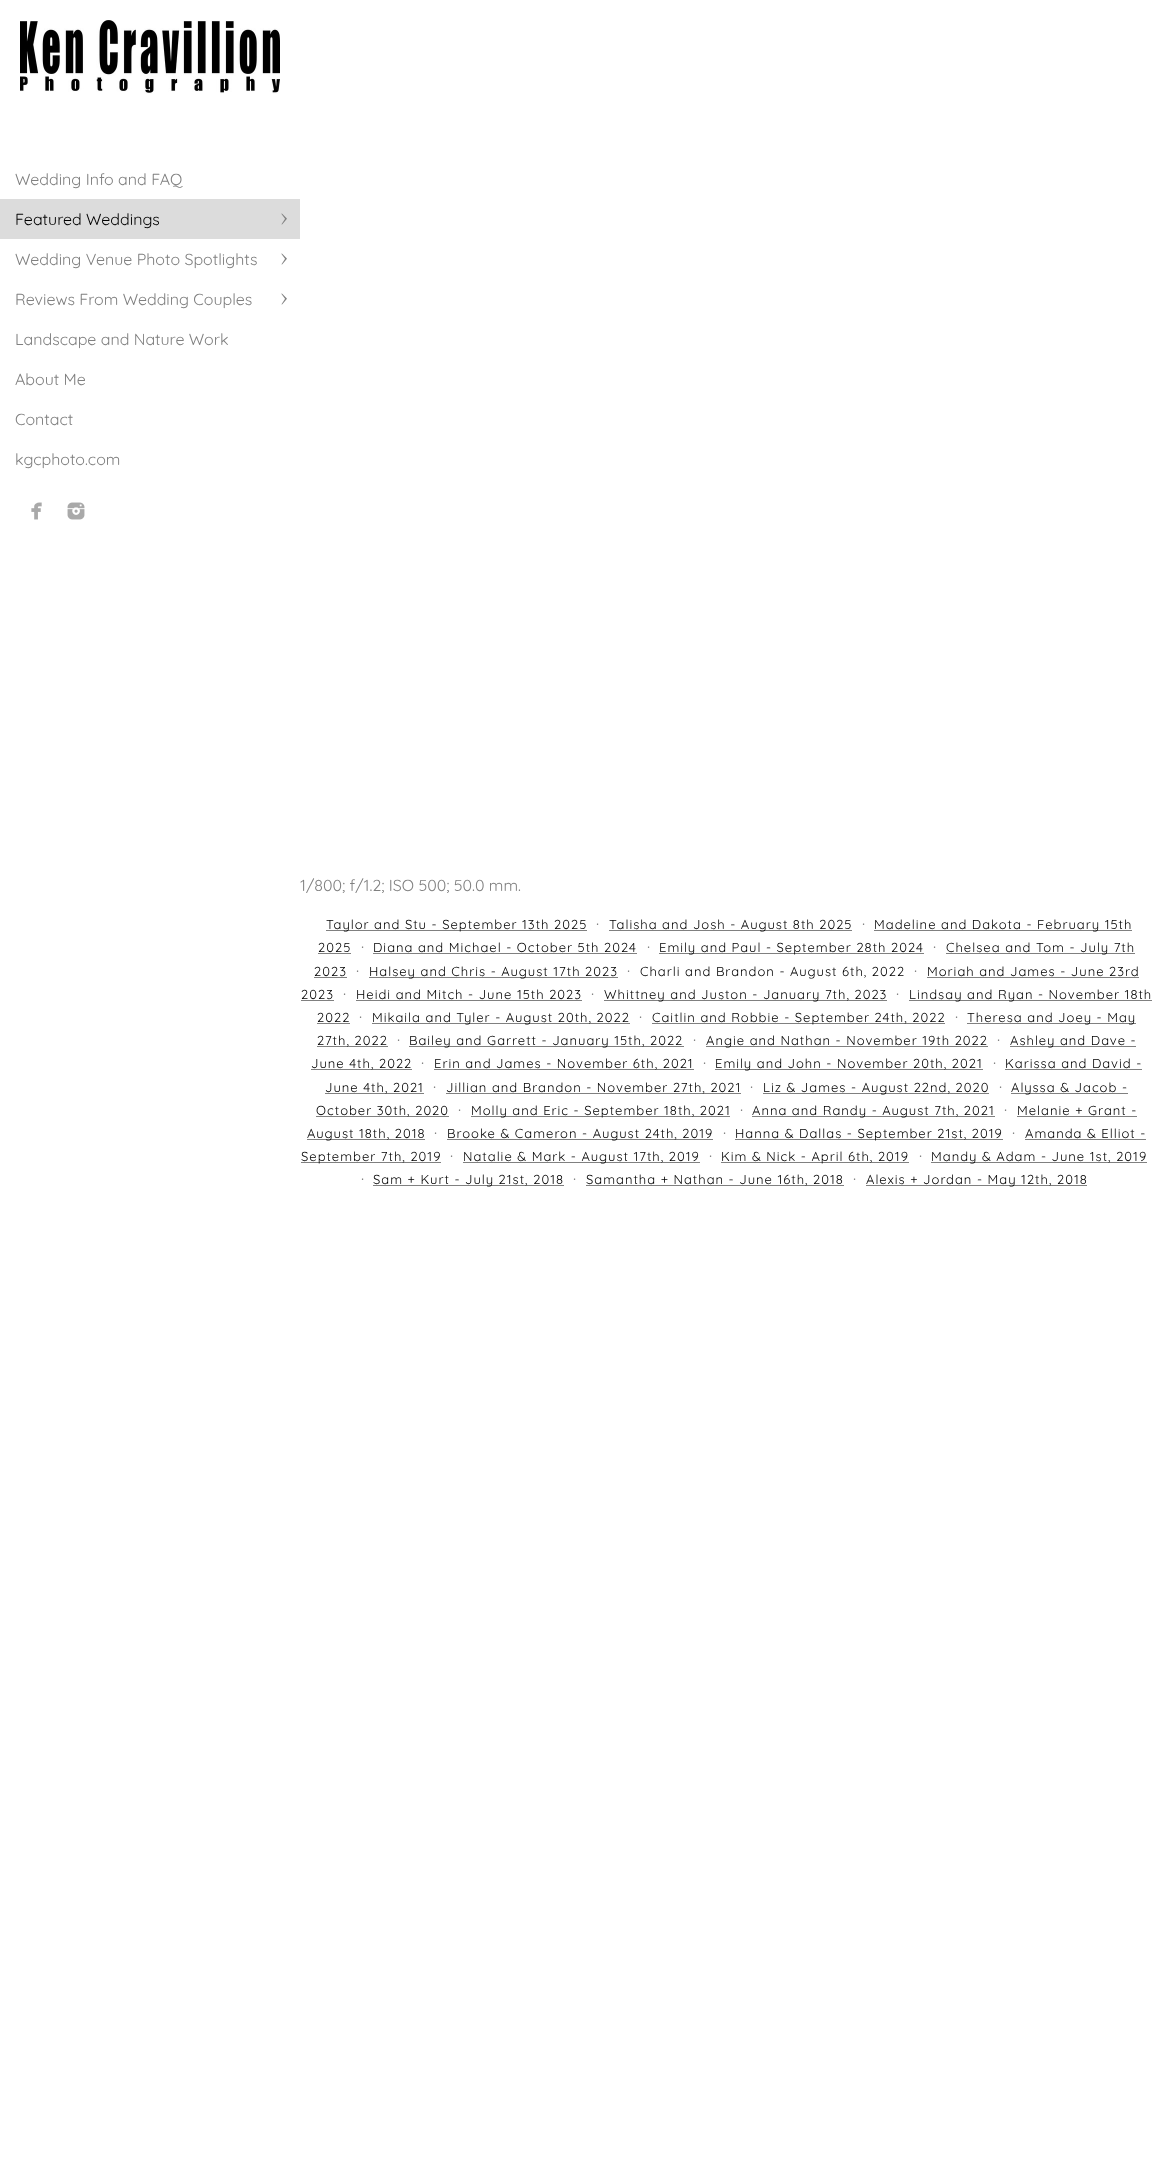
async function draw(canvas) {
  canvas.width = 1153;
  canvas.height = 2184;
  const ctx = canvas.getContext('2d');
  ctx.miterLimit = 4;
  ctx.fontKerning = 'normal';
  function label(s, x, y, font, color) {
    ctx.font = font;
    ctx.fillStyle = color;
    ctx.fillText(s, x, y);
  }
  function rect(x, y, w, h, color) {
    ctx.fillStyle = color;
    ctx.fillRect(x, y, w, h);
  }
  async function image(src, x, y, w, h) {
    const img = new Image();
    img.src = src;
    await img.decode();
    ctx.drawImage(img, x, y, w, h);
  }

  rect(0, 0, 1153, 2184, '#fff');
  await image('assets/img1.png', 20, 20, 260, 74);
  label('Wedding Info and FAQ', 15, 185, '300 16px Quicksand', '#808080');
  rect(0, 199, 300, 40, '#dcdcdc');
  label('Featured Weddings', 15, 225, '300 16px Quicksand', '#000');
  await image('assets/img2.png', 281, 213, 6, 12);
  label('Wedding Venue Photo Spotlights', 15, 265, '300 16px Quicksand', '#808080');
  await image('assets/img3.png', 281, 253, 6, 12);
  label('Reviews From Wedding Couples', 15, 305, '300 16px Quicksand', '#808080');
  await image('assets/img3.png', 281, 293, 6, 12);
  label('Landscape and Nature Work', 15, 345, '300 16px Quicksand', '#808080');
  label('About Me', 15, 385, '300 16px Quicksand', '#808080');
  label('Contact', 15, 425, '300 16px Quicksand', '#808080');
  label('kgcphoto.com', 15, 465, '300 16px Quicksand', '#808080');
  await image('assets/img4.png', 31, 502, 11, 18);
  await image('assets/img5.png', 67, 502, 18, 18);
  label('1/800; f/1.2; ISO 500; 50.0 mm.', 300, 891, '300 16px Quicksand', '#808080');
  rect(326, 930, 261, 1, '#808080');
  ctx.letterSpacing = '1px';
  label('Taylor and Stu - September 13th 2025', 326, 929, '300 13px Quicksand', '#000');
  ctx.letterSpacing = '0px';
  label('·', 596, 929, '300 16px Quicksand', '#808080');
  rect(609, 930, 243, 1, '#808080');
  ctx.letterSpacing = '1px';
  label('Talisha and Josh - August 8th 2025', 609, 929, '300 13px Quicksand', '#000');
  ctx.letterSpacing = '0px';
  label('·', 862, 929, '300 16px Quicksand', '#808080');
  rect(874, 930, 258, 1, '#808080');
  ctx.letterSpacing = '1px';
  label('Madeline and Dakota - February 15th', 874, 929, '300 13px Quicksand', '#000');
  label('2025', 318, 952, '300 13px Quicksand', '#000');
  rect(318, 953, 33, 1, '#808080');
  ctx.letterSpacing = '0px';
  label('·', 361, 952, '300 16px Quicksand', '#808080');
  ctx.letterSpacing = '1px';
  label('Diana and Michael - October 5th 2024', 373, 952, '300 13px Quicksand', '#000');
  rect(373, 953, 264, 1, '#808080');
  ctx.letterSpacing = '0px';
  label('·', 647, 952, '300 16px Quicksand', '#808080');
  rect(659, 953, 265, 1, '#808080');
  ctx.letterSpacing = '1px';
  label('Emily and Paul - September 28th 2024', 659, 952, '300 13px Quicksand', '#000');
  ctx.letterSpacing = '0px';
  label('·', 933, 952, '300 16px Quicksand', '#808080');
  rect(946, 953, 189, 1, '#808080');
  ctx.letterSpacing = '1px';
  label('Chelsea and Tom - July 7th', 946, 952, '300 13px Quicksand', '#000');
  label('2023', 314, 976, '300 13px Quicksand', '#000');
  rect(314, 977, 33, 1, '#808080');
  ctx.letterSpacing = '0px';
  label('·', 356, 976, '300 16px Quicksand', '#808080');
  rect(369, 977, 249, 1, '#808080');
  ctx.letterSpacing = '1px';
  label('Halsey and Chris - August 17th 2023', 369, 976, '300 13px Quicksand', '#000');
  ctx.letterSpacing = '0px';
  label('·', 627, 976, '300 16px Quicksand', '#808080');
  ctx.letterSpacing = '1px';
  label('Charli and Brandon - August 6th, 2022', 640, 976, '300 13px Quicksand', '#000');
  ctx.letterSpacing = '0px';
  label('·', 914, 976, '300 16px Quicksand', '#808080');
  ctx.letterSpacing = '1px';
  label('Moriah and James - June 23rd', 927, 976, '300 13px Quicksand', '#000');
  rect(927, 977, 212, 1, '#808080');
  label('2023', 301, 999, '300 13px Quicksand', '#000');
  rect(301, 1000, 33, 1, '#808080');
  ctx.letterSpacing = '0px';
  label('·', 343, 999, '300 16px Quicksand', '#808080');
  ctx.letterSpacing = '1px';
  label('Heidi and Mitch - June 15th 2023', 356, 999, '300 13px Quicksand', '#000');
  rect(356, 1000, 226, 1, '#808080');
  ctx.letterSpacing = '0px';
  label('·', 591, 999, '300 16px Quicksand', '#808080');
  rect(604, 1000, 283, 1, '#808080');
  ctx.letterSpacing = '1px';
  label('Whittney and Juston - January 7th, 2023', 604, 999, '300 13px Quicksand', '#000');
  ctx.letterSpacing = '0px';
  label('·', 896, 999, '300 16px Quicksand', '#808080');
  rect(909, 1000, 243, 1, '#808080');
  ctx.letterSpacing = '1px';
  label('Lindsay and Ryan - November 18th', 909, 999, '300 13px Quicksand', '#000');
  label('2022', 317, 1022, '300 13px Quicksand', '#000');
  rect(317, 1023, 33, 1, '#808080');
  ctx.letterSpacing = '0px';
  label('·', 359, 1022, '300 16px Quicksand', '#808080');
  rect(372, 1023, 258, 1, '#808080');
  ctx.letterSpacing = '1px';
  label('Mikaila and Tyler - August 20th, 2022', 372, 1022, '300 13px Quicksand', '#000');
  ctx.letterSpacing = '0px';
  label('·', 639, 1022, '300 16px Quicksand', '#808080');
  rect(652, 1023, 293, 1, '#808080');
  ctx.letterSpacing = '1px';
  label('Caitlin and Robbie - September 24th, 2022', 652, 1022, '300 13px Quicksand', '#000');
  ctx.letterSpacing = '0px';
  label('·', 955, 1022, '300 16px Quicksand', '#808080');
  rect(967, 1023, 169, 1, '#808080');
  ctx.letterSpacing = '1px';
  label('Theresa and Joey - May', 967, 1022, '300 13px Quicksand', '#000');
  rect(317, 1046, 71, 1, '#808080');
  label('27th, 2022', 317, 1045, '300 13px Quicksand', '#000');
  ctx.letterSpacing = '0px';
  label('·', 397, 1045, '300 16px Quicksand', '#808080');
  rect(409, 1046, 275, 1, '#808080');
  ctx.letterSpacing = '1px';
  label('Bailey and Garrett - January 15th, 2022', 409, 1045, '300 13px Quicksand', '#000');
  ctx.letterSpacing = '0px';
  label('·', 693, 1045, '300 16px Quicksand', '#808080');
  rect(706, 1046, 282, 1, '#808080');
  ctx.letterSpacing = '1px';
  label('Angie and Nathan - November 19th 2022', 706, 1045, '300 13px Quicksand', '#000');
  ctx.letterSpacing = '0px';
  label('·', 997, 1045, '300 16px Quicksand', '#808080');
  rect(1010, 1046, 126, 1, '#808080');
  ctx.letterSpacing = '1px';
  label('Ashley and Dave -', 1010, 1045, '300 13px Quicksand', '#000');
  rect(311, 1069, 101, 1, '#808080');
  label('June 4th, 2022', 311, 1068, '300 13px Quicksand', '#000');
  ctx.letterSpacing = '0px';
  label('·', 421, 1068, '300 16px Quicksand', '#808080');
  rect(434, 1069, 260, 1, '#808080');
  ctx.letterSpacing = '1px';
  label('Erin and James - November 6th, 2021', 434, 1068, '300 13px Quicksand', '#000');
  ctx.letterSpacing = '0px';
  label('·', 703, 1068, '300 16px Quicksand', '#808080');
  rect(715, 1069, 268, 1, '#808080');
  ctx.letterSpacing = '1px';
  label('Emily and John - November 20th, 2021', 715, 1068, '300 13px Quicksand', '#000');
  ctx.letterSpacing = '0px';
  label('·', 993, 1068, '300 16px Quicksand', '#808080');
  ctx.letterSpacing = '1px';
  label('Karissa and David -', 1005, 1068, '300 13px Quicksand', '#000');
  rect(1005, 1069, 137, 1, '#808080');
  rect(325, 1093, 99, 1, '#808080');
  label('June 4th, 2021', 325, 1092, '300 13px Quicksand', '#000');
  ctx.letterSpacing = '0px';
  label('·', 433, 1092, '300 16px Quicksand', '#808080');
  rect(446, 1093, 295, 1, '#808080');
  ctx.letterSpacing = '1px';
  label('Jillian and Brandon - November 27th, 2021', 446, 1092, '300 13px Quicksand', '#000');
  ctx.letterSpacing = '0px';
  label('·', 750, 1092, '300 16px Quicksand', '#808080');
  rect(763, 1093, 226, 1, '#808080');
  ctx.letterSpacing = '1px';
  label('Liz & James - August 22nd, 2020', 763, 1092, '300 13px Quicksand', '#000');
  ctx.letterSpacing = '0px';
  label('·', 999, 1092, '300 16px Quicksand', '#808080');
  rect(1011, 1093, 117, 1, '#808080');
  ctx.letterSpacing = '1px';
  label('Alyssa & Jacob -', 1011, 1092, '300 13px Quicksand', '#000');
  rect(316, 1116, 133, 1, '#808080');
  label('October 30th, 2020', 316, 1115, '300 13px Quicksand', '#000');
  ctx.letterSpacing = '0px';
  label('·', 458, 1115, '300 16px Quicksand', '#808080');
  rect(471, 1116, 259, 1, '#808080');
  ctx.letterSpacing = '1px';
  label('Molly and Eric - September 18th, 2021', 471, 1115, '300 13px Quicksand', '#000');
  ctx.letterSpacing = '0px';
  label('·', 740, 1115, '300 16px Quicksand', '#808080');
  rect(752, 1116, 243, 1, '#808080');
  ctx.letterSpacing = '1px';
  label('Anna and Randy - August 7th, 2021', 752, 1115, '300 13px Quicksand', '#000');
  ctx.letterSpacing = '0px';
  label('·', 1004, 1115, '300 16px Quicksand', '#808080');
  ctx.letterSpacing = '1px';
  label('Melanie + Grant -', 1017, 1115, '300 13px Quicksand', '#000');
  rect(1017, 1116, 120, 1, '#808080');
  rect(307, 1139, 118, 1, '#808080');
  label('August 18th, 2018', 307, 1138, '300 13px Quicksand', '#000');
  ctx.letterSpacing = '0px';
  label('·', 434, 1138, '300 16px Quicksand', '#808080');
  rect(447, 1139, 266, 1, '#808080');
  ctx.letterSpacing = '1px';
  label('Brooke & Cameron - August 24th, 2019', 447, 1138, '300 13px Quicksand', '#000');
  ctx.letterSpacing = '0px';
  label('·', 723, 1138, '300 16px Quicksand', '#808080');
  rect(735, 1139, 268, 1, '#808080');
  ctx.letterSpacing = '1px';
  label('Hanna & Dallas - September 21st, 2019', 735, 1138, '300 13px Quicksand', '#000');
  ctx.letterSpacing = '0px';
  label('·', 1012, 1138, '300 16px Quicksand', '#808080');
  ctx.letterSpacing = '1px';
  label('Amanda & Elliot -', 1025, 1138, '300 13px Quicksand', '#000');
  rect(1025, 1139, 121, 1, '#808080');
  rect(301, 1162, 140, 1, '#808080');
  label('September 7th, 2019', 301, 1161, '300 13px Quicksand', '#000');
  ctx.letterSpacing = '0px';
  label('·', 450, 1161, '300 16px Quicksand', '#808080');
  rect(463, 1162, 237, 1, '#808080');
  ctx.letterSpacing = '1px';
  label('Natalie & Mark - August 17th, 2019', 463, 1161, '300 13px Quicksand', '#000');
  ctx.letterSpacing = '0px';
  label('·', 709, 1161, '300 16px Quicksand', '#808080');
  rect(721, 1162, 188, 1, '#808080');
  ctx.letterSpacing = '1px';
  label('Kim & Nick - April 6th, 2019', 721, 1161, '300 13px Quicksand', '#000');
  ctx.letterSpacing = '0px';
  label('·', 919, 1161, '300 16px Quicksand', '#808080');
  rect(931, 1162, 216, 1, '#808080');
  ctx.letterSpacing = '1px';
  label('Mandy & Adam - June 1st, 2019', 931, 1161, '300 13px Quicksand', '#000');
  ctx.letterSpacing = '0px';
  label('·', 361, 1184, '300 16px Quicksand', '#808080');
  rect(373, 1185, 191, 1, '#808080');
  ctx.letterSpacing = '1px';
  label('Sam + Kurt - July 21st, 2018', 373, 1184, '300 13px Quicksand', '#000');
  ctx.letterSpacing = '0px';
  label('·', 573, 1184, '300 16px Quicksand', '#808080');
  rect(586, 1185, 258, 1, '#808080');
  ctx.letterSpacing = '1px';
  label('Samantha + Nathan - June 16th, 2018', 586, 1184, '300 13px Quicksand', '#000');
  ctx.letterSpacing = '0px';
  label('·', 853, 1184, '300 16px Quicksand', '#808080');
  rect(866, 1185, 221, 1, '#808080');
  ctx.letterSpacing = '1px';
  label('Alexis + Jordan - May 12th, 2018', 866, 1184, '300 13px Quicksand', '#000');
}

draw(document.querySelector('canvas'));
